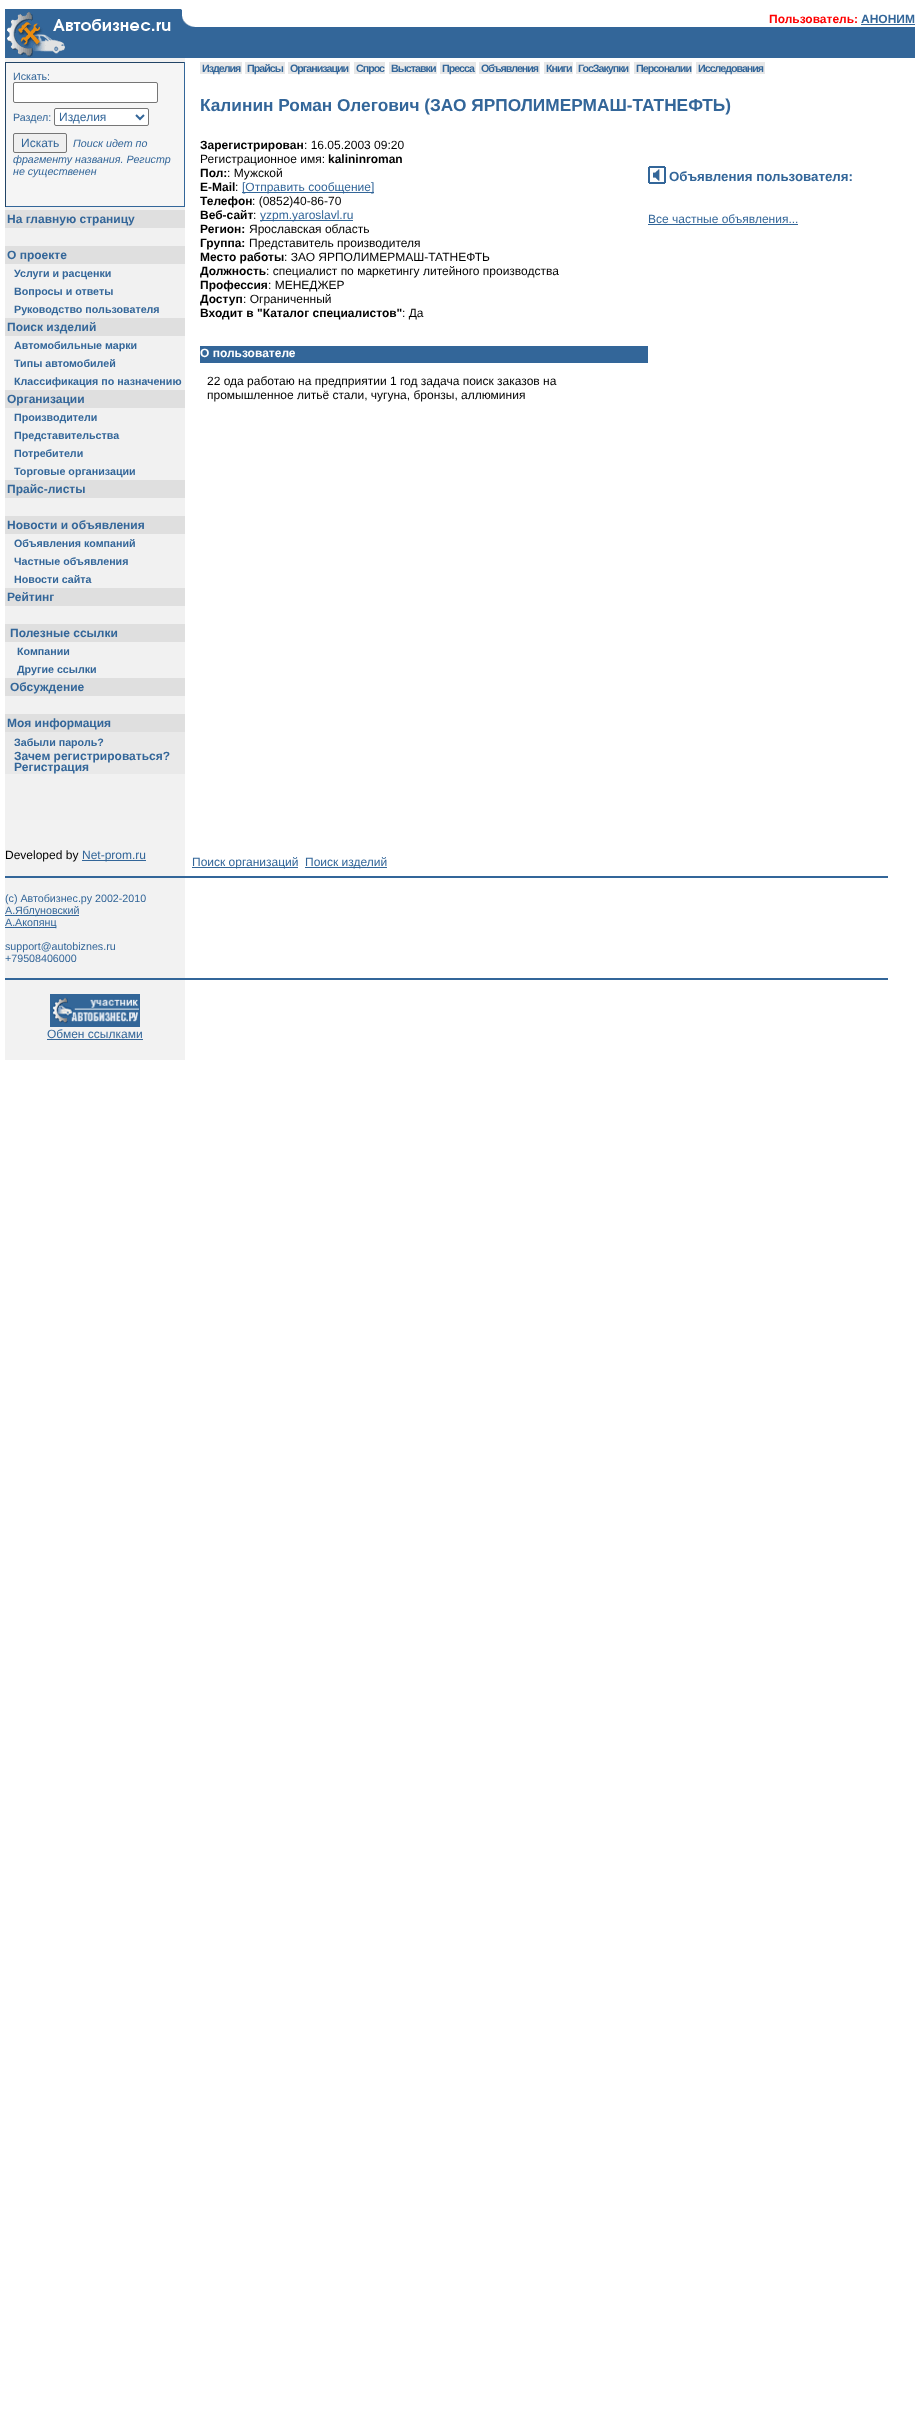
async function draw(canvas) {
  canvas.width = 920;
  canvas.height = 2415;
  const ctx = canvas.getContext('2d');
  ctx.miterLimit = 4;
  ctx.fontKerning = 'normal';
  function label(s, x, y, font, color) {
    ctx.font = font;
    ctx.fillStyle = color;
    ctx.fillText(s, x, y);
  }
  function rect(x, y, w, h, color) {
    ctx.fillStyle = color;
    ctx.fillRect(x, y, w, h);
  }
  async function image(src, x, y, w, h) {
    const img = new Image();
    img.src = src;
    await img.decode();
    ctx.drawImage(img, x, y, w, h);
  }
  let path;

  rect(0, 0, 920, 2415, '#fff');
  await image('assets/img1.png', 5, 9, 190, 49);
  label('Пользователь:', 769, 23, 'bold 12px Liberation Sans', '#f00');
  label('АНОНИМ', 861, 23, 'bold 12px Liberation Sans', '#369');
  rect(861, 24, 54, 1, '#369');
  rect(195, 27, 720, 31, '#369');
  rect(5, 58, 180, 762, '#f1f1f1');
  rect(6, 63, 178, 143, '#f5f5f5');
  rect(5, 62, 180, 1, '#246');
  rect(184, 62, 1, 145, '#369');
  rect(5, 206, 180, 1, '#369');
  rect(5, 62, 1, 145, '#246');
  label('Искать:', 13, 80, '10.7px Liberation Sans', '#369');
  ctx.fillStyle = '#fff';
  ctx.beginPath();
  ctx.roundRect(13.5, 82.5, 144, 20, 1.5);
  ctx.fill();
  ctx.strokeStyle = '#767676';
  ctx.stroke();
  label('Раздел:', 13, 121, '10.7px Liberation Sans', '#369');
  ctx.fillStyle = '#fff';
  ctx.beginPath();
  ctx.roundRect(54.5, 108.5, 94, 17, 1.5);
  ctx.fill();
  ctx.stroke();
  path = new Path2D('M136 115L140 119L144 115');
  ctx.strokeStyle = '#369';
  ctx.lineWidth = 2;
  ctx.stroke(path);
  label('Изделия', 59, 121, '12px Liberation Sans', '#369');
  ctx.fillStyle = '#efefef';
  ctx.beginPath();
  ctx.roundRect(13.5, 133.5, 53, 19, 1.5);
  ctx.fill();
  ctx.strokeStyle = '#767676';
  ctx.lineWidth = 1;
  ctx.stroke();
  label('Искать', 21, 147, '12px Liberation Sans', '#369');
  label('Поиск идет по', 73, 147, 'italic 10.7px Liberation Sans', '#369');
  label('фрагменту названия. Регистр', 13, 163, 'italic 10.7px Liberation Sans', '#369');
  label('не существенен', 13, 175, 'italic 10.7px Liberation Sans', '#369');
  rect(5, 210, 180, 18, '#dfdfdf');
  label('На главную страницу', 7, 223, 'bold 12px Liberation Sans', '#369');
  rect(5, 246, 180, 18, '#dfdfdf');
  label('О проекте', 7, 259, 'bold 12px Liberation Sans', '#369');
  label('Услуги и расценки', 14, 277, 'bold 10.7px Liberation Sans', '#369');
  label('Вопросы и ответы', 14, 295, 'bold 10.7px Liberation Sans', '#369');
  label('Руководство пользователя', 14, 313, 'bold 10.7px Liberation Sans', '#369');
  rect(5, 318, 180, 18, '#dfdfdf');
  label('Поиск изделий', 7, 331, 'bold 12px Liberation Sans', '#369');
  label('Автомобильные марки', 14, 349, 'bold 10.7px Liberation Sans', '#369');
  label('Типы автомобилей', 14, 367, 'bold 10.7px Liberation Sans', '#369');
  label('Классификация по назначению', 14, 385, 'bold 10.7px Liberation Sans', '#369');
  rect(5, 390, 180, 18, '#dfdfdf');
  label('Организации', 7, 403, 'bold 12px Liberation Sans', '#369');
  label('Производители', 14, 421, 'bold 10.7px Liberation Sans', '#369');
  label('Представительства', 14, 439, 'bold 10.7px Liberation Sans', '#369');
  label('Потребители', 14, 457, 'bold 10.7px Liberation Sans', '#369');
  label('Торговые организации', 14, 475, 'bold 10.7px Liberation Sans', '#369');
  rect(5, 480, 180, 18, '#dfdfdf');
  label('Прайс-листы', 7, 493, 'bold 12px Liberation Sans', '#369');
  rect(5, 516, 180, 18, '#dfdfdf');
  label('Новости и объявления', 7, 529, 'bold 12px Liberation Sans', '#369');
  label('Объявления компаний', 14, 547, 'bold 10.7px Liberation Sans', '#369');
  label('Частные объявления', 14, 565, 'bold 10.7px Liberation Sans', '#369');
  label('Новости сайта', 14, 583, 'bold 10.7px Liberation Sans', '#369');
  rect(5, 588, 180, 18, '#dfdfdf');
  label('Рейтинг', 7, 601, 'bold 12px Liberation Sans', '#369');
  rect(5, 624, 180, 18, '#dfdfdf');
  label('Полезные ссылки', 10, 637, 'bold 12px Liberation Sans', '#369');
  label('Компании', 17, 655, 'bold 10.7px Liberation Sans', '#369');
  label('Другие ссылки', 17, 673, 'bold 10.7px Liberation Sans', '#369');
  rect(5, 678, 180, 18, '#dfdfdf');
  label('Обсуждение', 10, 691, 'bold 12px Liberation Sans', '#369');
  rect(5, 714, 180, 18, '#dfdfdf');
  label('Моя информация', 7, 727, 'bold 12px Liberation Sans', '#369');
  rect(5, 732, 180, 42, '#e9e9e9');
  label('Забыли пароль?', 14, 746, 'bold 10.7px Liberation Sans', '#369');
  label('Зачем регистрироваться?', 14, 760, 'bold 12px Liberation Sans', '#369');
  label('Регистрация', 14, 771, 'bold 12px Liberation Sans', '#369');
  rect(200, 62, 42, 12, '#e7e7e7');
  ctx.letterSpacing = '-1px';
  label('Изделия', 202, 72, 'bold 10.7px Liberation Sans', '#369');
  rect(245, 62, 40, 12, '#e7e7e7');
  label('Прайсы', 247, 72, 'bold 10.7px Liberation Sans', '#369');
  rect(288, 62, 62, 12, '#e7e7e7');
  label('Организации', 290, 72, 'bold 10.7px Liberation Sans', '#369');
  rect(354, 62, 31, 12, '#e7e7e7');
  label('Спрос', 356, 72, 'bold 10.7px Liberation Sans', '#369');
  rect(389, 62, 48, 12, '#e7e7e7');
  label('Выставки', 391, 72, 'bold 10.7px Liberation Sans', '#369');
  rect(440, 62, 36, 12, '#e7e7e7');
  label('Пресса', 442, 72, 'bold 10.7px Liberation Sans', '#369');
  rect(479, 62, 61, 12, '#e7e7e7');
  label('Объявления', 481, 72, 'bold 10.7px Liberation Sans', '#369');
  rect(544, 62, 29, 12, '#e7e7e7');
  label('Книги', 546, 72, 'bold 10.7px Liberation Sans', '#369');
  rect(576, 62, 54, 12, '#e7e7e7');
  label('ГосЗакупки', 578, 72, 'bold 10.7px Liberation Sans', '#369');
  rect(634, 62, 58, 12, '#e7e7e7');
  label('Персоналии', 636, 72, 'bold 10.7px Liberation Sans', '#369');
  rect(696, 62, 69, 12, '#e7e7e7');
  label('Исследования', 698, 72, 'bold 10.7px Liberation Sans', '#369');
  ctx.letterSpacing = '0px';
  label('Калинин Роман Олегович (ЗАО ЯРПОЛИМЕРМАШ-ТАТНЕФТЬ)', 200, 111, 'bold 17.3px Liberation Sans', '#369');
  label('Зарегистрирован', 200, 149, 'bold 12px Liberation Sans', '#000');
  label(': 16.05.2003 09:20', 304, 149, '12px Liberation Sans', '#000');
  label('Регистрационное имя:', 200, 163, '12px Liberation Sans', '#000');
  label('kalininroman', 328, 163, 'bold 12px Liberation Sans', '#000');
  label('Пол:', 200, 177, 'bold 12px Liberation Sans', '#000');
  label(': Мужской', 227, 177, '12px Liberation Sans', '#000');
  label('E-Mail', 200, 191, 'bold 12px Liberation Sans', '#000');
  label(':', 235, 191, '12px Liberation Sans', '#000');
  rect(242, 192, 132, 1, '#369');
  label('[Отправить сообщение]', 242, 191, '12px Liberation Sans', '#369');
  label('Телефон', 200, 205, 'bold 12px Liberation Sans', '#000');
  label(': (0852)40-86-70', 252, 205, '12px Liberation Sans', '#000');
  label('Веб-сайт', 200, 219, 'bold 12px Liberation Sans', '#000');
  label(':', 253, 219, '12px Liberation Sans', '#000');
  rect(260, 220, 93, 1, '#369');
  label('yzpm.yaroslavl.ru', 260, 219, '12px Liberation Sans', '#369');
  label('Регион:', 200, 233, 'bold 12px Liberation Sans', '#000');
  label('Ярославская область', 249, 233, '12px Liberation Sans', '#000');
  label('Группа:', 200, 247, 'bold 12px Liberation Sans', '#000');
  label('Представитель производителя', 249, 247, '12px Liberation Sans', '#000');
  label('Место работы', 200, 261, 'bold 12px Liberation Sans', '#000');
  label(': ЗАО ЯРПОЛИМЕРМАШ-ТАТНЕФТЬ', 284, 261, '12px Liberation Sans', '#000');
  label('Должность', 200, 275, 'bold 12px Liberation Sans', '#000');
  label(': специалист по маркетингу литейного производства', 266, 275, '12px Liberation Sans', '#000');
  label('Профессия', 200, 289, 'bold 12px Liberation Sans', '#000');
  label(': МЕНЕДЖЕР', 268, 289, '12px Liberation Sans', '#000');
  label('Доступ', 200, 303, 'bold 12px Liberation Sans', '#000');
  label(': Ограниченный', 243, 303, '12px Liberation Sans', '#000');
  label('Входит в "Каталог специалистов"', 200, 317, 'bold 12px Liberation Sans', '#000');
  label(': Да', 402, 317, '12px Liberation Sans', '#000');
  rect(200, 346, 448, 17, '#369');
  label('О пользователе', 200, 357, 'bold 12px Liberation Sans', '#fff');
  label('22 ода работаю на предприятии 1 год задача поиск заказов на', 207, 385, '12px Liberation Sans', '#000');
  label('промышленное литьё стали, чугуна, бронзы, аллюминия', 207, 399, '12px Liberation Sans', '#000');
  await image('assets/img2.png', 648, 166, 18, 18);
  label('Объявления пользователя:', 669, 181, 'bold 13.3px Liberation Sans', '#369');
  label('Все частные объявления...', 648, 223, '12px Liberation Sans', '#369');
  rect(648, 224, 150, 1, '#369');
  rect(5, 820, 180, 56, '#f2f2f2');
  label('Developed by', 5, 859, '12px Liberation Sans', '#000');
  rect(82, 860, 64, 1, '#369');
  label('Net-prom.ru', 82, 859, '12px Liberation Sans', '#369');
  rect(192, 867, 106, 1, '#369');
  label('Поиск организаций', 192, 866, '12px Liberation Sans', '#369');
  rect(305, 867, 82, 1, '#369');
  label('Поиск изделий', 305, 866, '12px Liberation Sans', '#369');
  rect(5, 876, 883, 2, '#369');
  rect(5, 878, 180, 100, '#f2f2f2');
  label('(c) Автобизнес.ру 2002-2010', 5, 902, '10.7px Liberation Sans', '#369');
  rect(5, 915, 74, 1, '#369');
  label('А.Яблуновский', 5, 914, '10.7px Liberation Sans', '#369');
  rect(5, 927, 51, 1, '#369');
  label('А.Акопянц', 5, 926, '10.7px Liberation Sans', '#369');
  label('support@autobiznes.ru', 5, 950, '10.7px Liberation Sans', '#369');
  label('+79508406000', 5, 962, '10.7px Liberation Sans', '#369');
  rect(5, 978, 883, 2, '#369');
  rect(5, 980, 180, 80, '#f2f2f2');
  ctx.strokeStyle = '#369';
  ctx.strokeRect(50.5, 994.5, 89, 32);
  await image('assets/img3.png', 51, 995, 88, 31);
  label('Обмен ссылками', 47, 1038, '12px Liberation Sans', '#369');
  rect(47, 1039, 96, 1, '#369');
}

draw(document.querySelector('canvas'));
